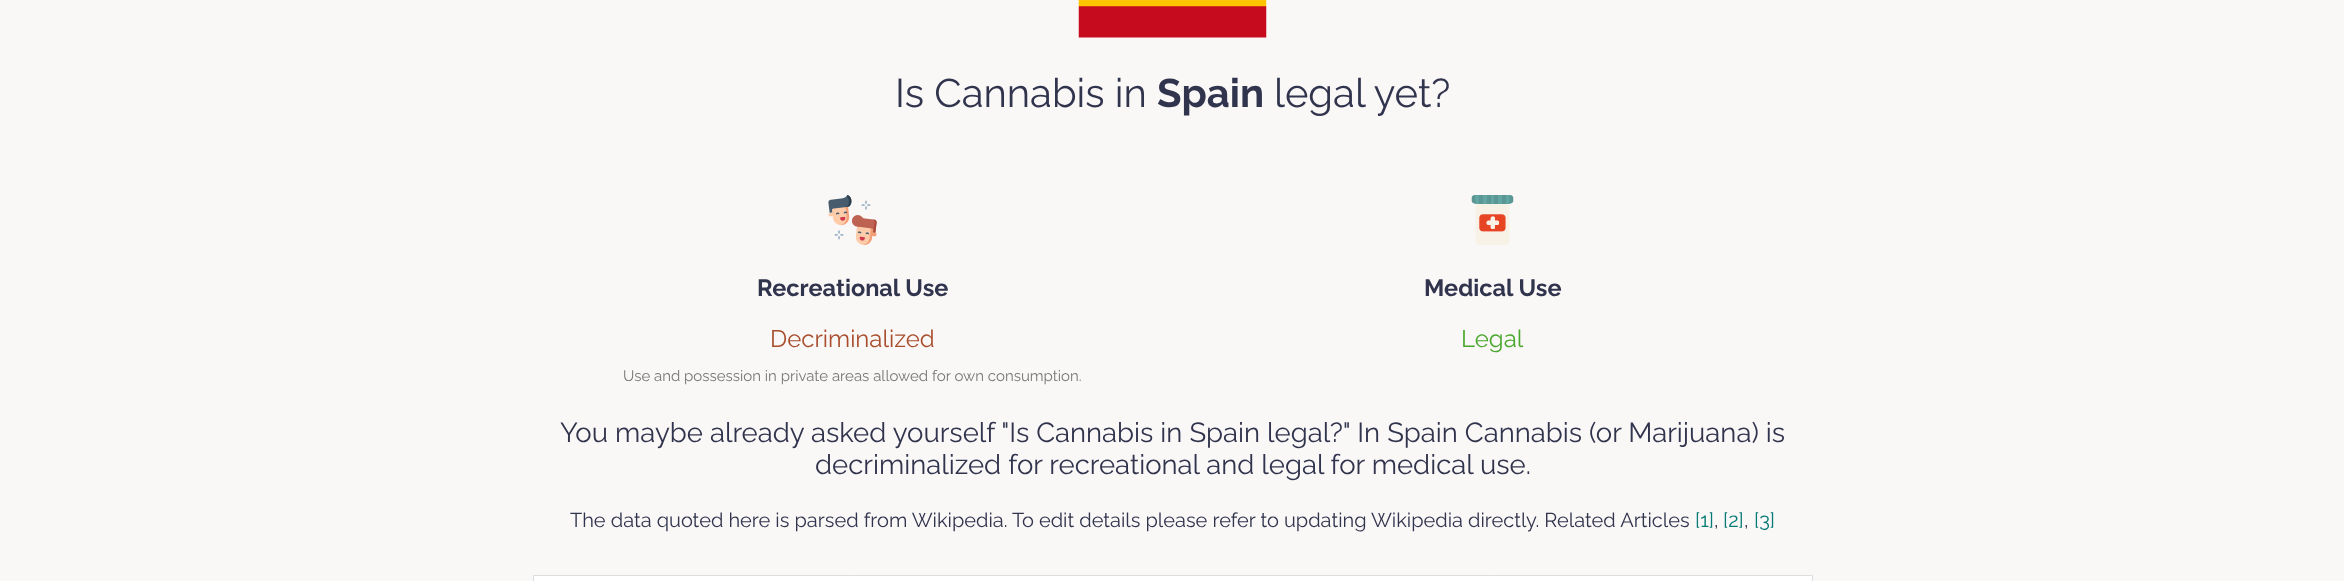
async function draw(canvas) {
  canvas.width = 2344;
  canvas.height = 581;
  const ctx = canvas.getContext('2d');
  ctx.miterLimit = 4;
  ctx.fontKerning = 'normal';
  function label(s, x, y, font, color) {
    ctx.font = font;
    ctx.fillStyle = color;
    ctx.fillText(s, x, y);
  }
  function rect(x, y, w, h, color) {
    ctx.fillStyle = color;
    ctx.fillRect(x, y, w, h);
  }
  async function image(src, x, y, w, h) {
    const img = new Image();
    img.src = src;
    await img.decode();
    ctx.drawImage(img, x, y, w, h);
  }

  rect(0, 0, 2344, 581, '#faf7f7');
  await image('assets/img1.png', 1078, 0, 189, 38);
  label('Is Cannabis in', 895, 107, '40px Raleway', '#31344d');
  label('Spain', 1157, 107, 'bold 40px Raleway', '#31344d');
  label('legal yet?', 1274, 107, '40px Raleway', '#31344d');
  await image('assets/img2.png', 828, 195, 49, 50);
  label('Recreational Use', 757, 296, 'bold 23.5px Raleway', '#31344d');
  label('Decriminalized', 770, 347, '24px Raleway', '#a84e2d');
  label('Use and possession in private areas allowed for own consumption.', 623, 381, '15px Raleway', '#777');
  await image('assets/img3.png', 1471, 195, 43, 50);
  label('Medical Use', 1424, 296, 'bold 23.5px Raleway', '#31344d');
  label('Legal', 1461, 347, '24px Raleway', '#4aa82d');
  label('You maybe already asked yourself "Is Cannabis in Spain legal?" In Spain Cannabis (or Marijuana) is', 560, 442, '27.5px Raleway', '#31344d');
  label('decriminalized for recreational and legal for medical use.', 815, 474, '27.5px Raleway', '#31344d');
  label('The data quoted here is parsed from Wikipedia. To edit details please refer to updating Wikipedia directly. Related Articles', 570, 527, '20px Raleway', '#31344d');
  label('[1]', 1695, 527, '20px Raleway', '#047a73');
  label(',', 1714, 527, '20px Raleway', '#31344d');
  label('[2]', 1723, 527, '20px Raleway', '#047a73');
  label(',', 1744, 527, '20px Raleway', '#31344d');
  label('[3]', 1754, 527, '20px Raleway', '#047a73');
  ctx.fillStyle = '#fff';
  ctx.beginPath();
  ctx.rect(533.5, 575.5, 1279, 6);
  ctx.fill();
  ctx.strokeStyle = '#ddd';
  ctx.stroke();
}

draw(document.querySelector('canvas'));
